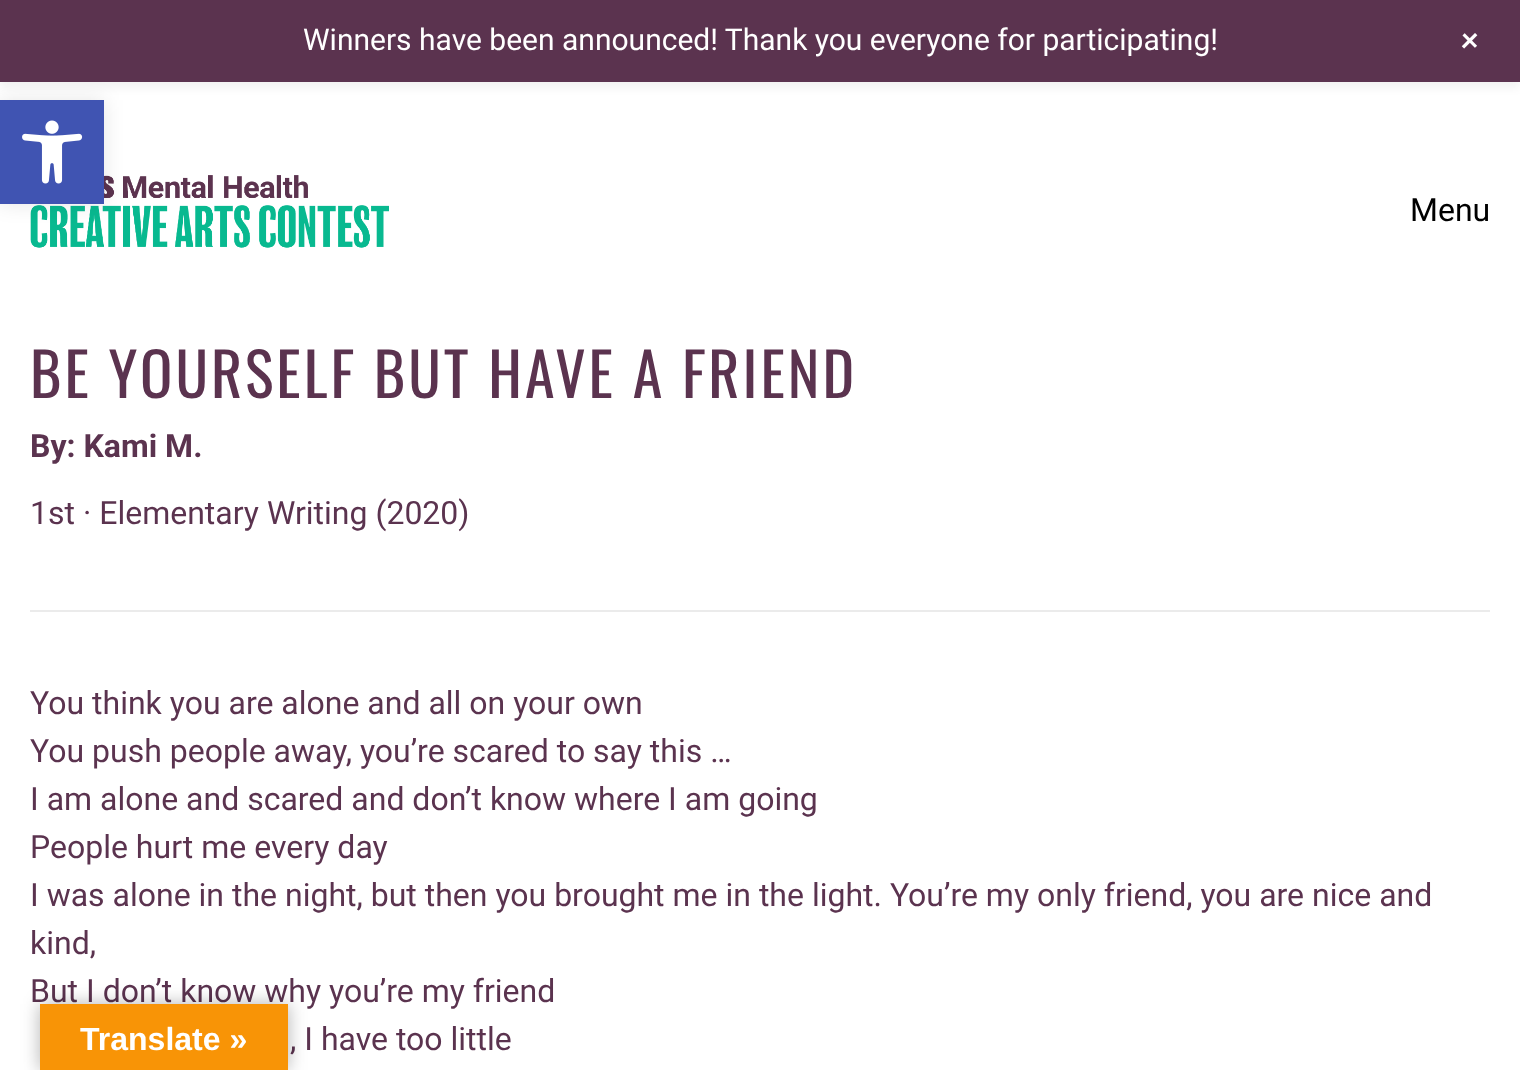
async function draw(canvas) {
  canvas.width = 1520;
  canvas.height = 1070;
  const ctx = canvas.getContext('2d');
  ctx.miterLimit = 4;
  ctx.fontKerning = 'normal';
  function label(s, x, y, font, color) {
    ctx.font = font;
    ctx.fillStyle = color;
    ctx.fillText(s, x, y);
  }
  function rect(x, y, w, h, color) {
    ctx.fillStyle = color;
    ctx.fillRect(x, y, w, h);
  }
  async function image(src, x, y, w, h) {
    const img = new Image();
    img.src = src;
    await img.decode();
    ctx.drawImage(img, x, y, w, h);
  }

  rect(0, 0, 1520, 1070, '#fff');
  await image('assets/img2.png', 30, 175, 359, 73);
  ctx.fillStyle = '#0000001a';
  ctx.filter = 'blur(10px)';
  ctx.beginPath();
  ctx.rect(0, 100, 104, 104);
  ctx.fill();
  ctx.filter = 'none';
  rect(0, 100, 104, 104, '#4054b2');
  ctx.fillStyle = '#0000000d';
  ctx.filter = 'blur(4px)';
  ctx.beginPath();
  ctx.rect(0, 6, 1520, 82);
  ctx.fill();
  ctx.filter = 'none';
  rect(0, 0, 1520, 82, '#5b334f');
  label('Winners have been announced! Thank you everyone for participating!', 303, 50, '30px Roboto', '#fff');
  ctx.font = '36px Roboto';
  ctx.save();
  ctx.translate(1454, 42);
  ctx.rotate(45 * Math.PI / 180);
  ctx.fillText('+', 0, 0);
  ctx.restore();
  await image('assets/img1.png', 22, 120, 61, 64);
  label('Menu', 1410, 221, '32px Roboto', '#000');
  ctx.letterSpacing = '3px';
  label('BE YOURSELF BUT HAVE A FRIEND', 30, 398, '60px Oswald', '#5b334f');
  ctx.letterSpacing = '0px';
  label('By: Kami M.', 30, 457, 'bold 32px Roboto', '#5b334f');
  label('1st · Elementary Writing (2020)', 30, 524, '32px Roboto', '#5b334f');
  rect(30, 610, 1460, 2, '#ebebeb');
  label('You think you are alone and all on your own', 30, 714, '32px Roboto', '#5b334f');
  label('You push people away, you’re scared to say this …', 30, 762, '32px Roboto', '#5b334f');
  label('I am alone and scared and don’t know where I am going', 30, 810, '32px Roboto', '#5b334f');
  label('People hurt me every day', 30, 858, '32px Roboto', '#5b334f');
  label('I was alone in the night, but then you brought me in the light. You’re my only friend, you are nice and', 30, 906, '32px Roboto', '#5b334f');
  label('kind,', 30, 954, '32px Roboto', '#5b334f');
  label('But I don’t know why you’re my friend', 30, 1002, '32px Roboto', '#5b334f');
  label(', I have too little', 290, 1050, '32px Roboto', '#5b334f');
  ctx.fillStyle = '#0000004d';
  ctx.filter = 'blur(9px)';
  ctx.beginPath();
  ctx.rect(40, 1004, 248, 66);
  ctx.fill();
  ctx.filter = 'none';
  rect(40, 1004, 248, 66, '#f89406');
  label('Translate »', 80, 1050, 'bold 32px Liberation Sans', '#fff');
}

draw(document.querySelector('canvas'));
